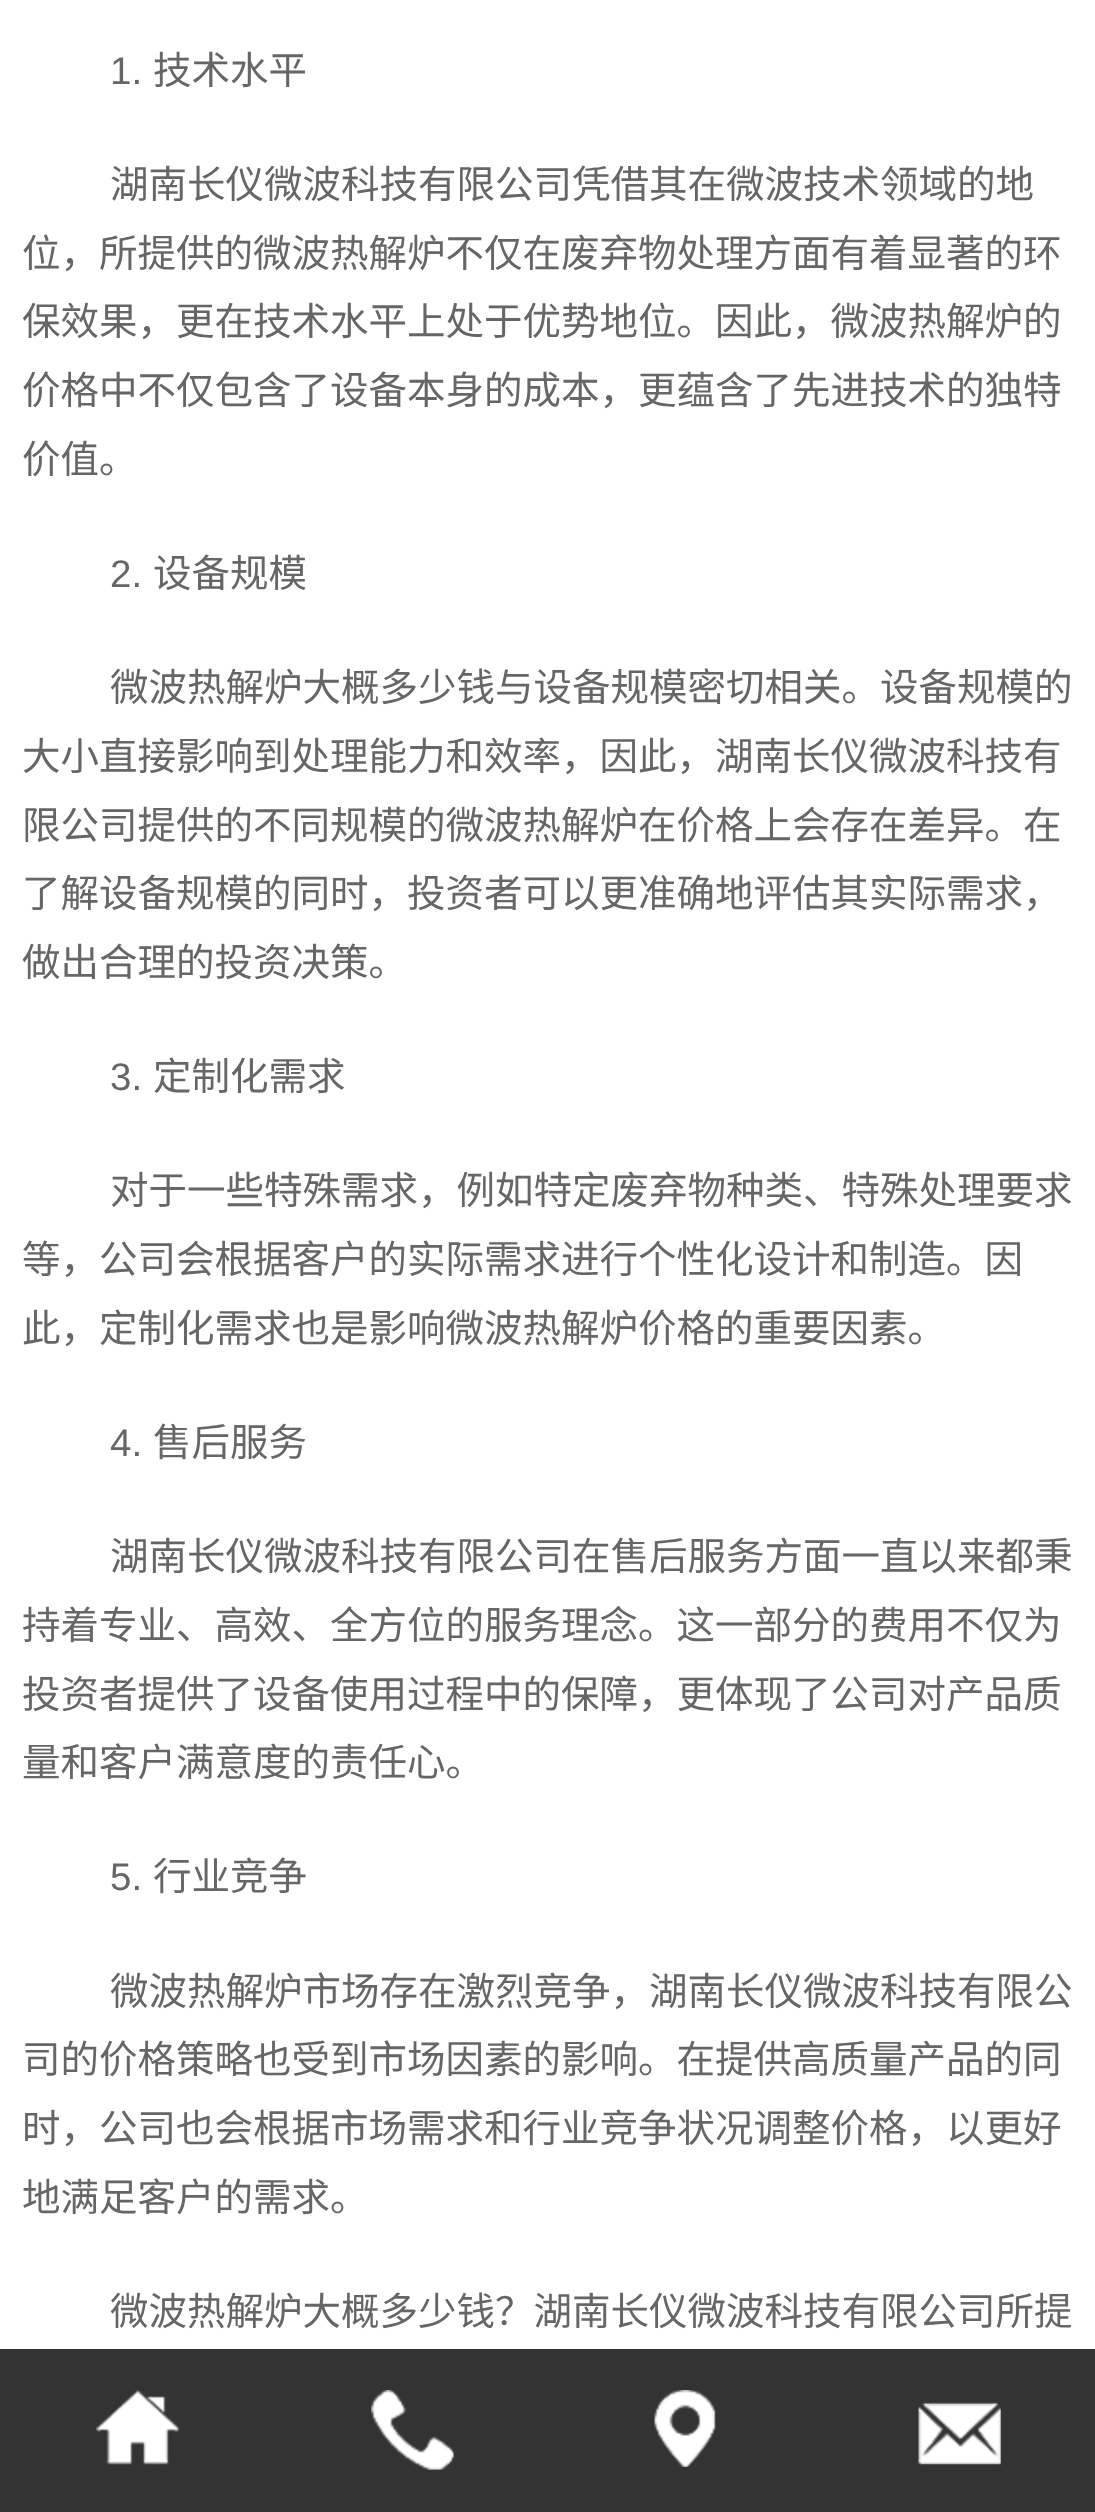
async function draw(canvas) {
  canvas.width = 1095;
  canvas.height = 2512;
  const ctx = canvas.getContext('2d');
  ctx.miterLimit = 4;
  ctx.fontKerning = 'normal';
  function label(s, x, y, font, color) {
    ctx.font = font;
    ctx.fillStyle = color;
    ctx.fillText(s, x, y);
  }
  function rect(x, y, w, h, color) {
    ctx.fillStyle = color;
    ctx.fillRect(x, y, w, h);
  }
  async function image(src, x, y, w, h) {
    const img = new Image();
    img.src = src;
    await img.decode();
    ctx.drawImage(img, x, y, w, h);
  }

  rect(0, 0, 1095, 2512, '#fff');
  label('1.', 110, 84, '38.5px Liberation Sans', '#666');
  label('技术水平', 153, 84, '38.5px Noto Sans CJK SC', '#666');
  label('湖南长仪微波科技有限公司凭借其在微波技术领域的地', 110, 198, '38.5px Noto Sans CJK SC', '#666');
  label('位，所提供的微波热解炉不仅在废弃物处理方面有着显著的环', 22, 267, '38.5px Noto Sans CJK SC', '#666');
  label('保效果，更在技术水平上处于优势地位。因此，微波热解炉的', 22, 335, '38.5px Noto Sans CJK SC', '#666');
  label('价格中不仅包含了设备本身的成本，更蕴含了先进技术的独特', 22, 404, '38.5px Noto Sans CJK SC', '#666');
  label('价值。', 22, 473, '38.5px Noto Sans CJK SC', '#666');
  label('2.', 110, 587, '38.5px Liberation Sans', '#666');
  label('设备规模', 153, 587, '38.5px Noto Sans CJK SC', '#666');
  label('微波热解炉大概多少钱与设备规模密切相关。设备规模的', 110, 701, '38.5px Noto Sans CJK SC', '#666');
  label('大小直接影响到处理能力和效率，因此，湖南长仪微波科技有', 22, 770, '38.5px Noto Sans CJK SC', '#666');
  label('限公司提供的不同规模的微波热解炉在价格上会存在差异。在', 22, 839, '38.5px Noto Sans CJK SC', '#666');
  label('了解设备规模的同时，投资者可以更准确地评估其实际需求，', 22, 907, '38.5px Noto Sans CJK SC', '#666');
  label('做出合理的投资决策。', 22, 976, '38.5px Noto Sans CJK SC', '#666');
  label('3.', 110, 1090, '38.5px Liberation Sans', '#666');
  label('定制化需求', 153, 1090, '38.5px Noto Sans CJK SC', '#666');
  label('对于一些特殊需求，例如特定废弃物种类、特殊处理要求', 110, 1204, '38.5px Noto Sans CJK SC', '#666');
  label('等，公司会根据客户的实际需求进行个性化设计和制造。因', 22, 1273, '38.5px Noto Sans CJK SC', '#666');
  label('此，定制化需求也是影响微波热解炉价格的重要因素。', 22, 1342, '38.5px Noto Sans CJK SC', '#666');
  label('4.', 110, 1456, '38.5px Liberation Sans', '#666');
  label('售后服务', 153, 1456, '38.5px Noto Sans CJK SC', '#666');
  label('湖南长仪微波科技有限公司在售后服务方面一直以来都秉', 110, 1570, '38.5px Noto Sans CJK SC', '#666');
  label('持着专业、高效、全方位的服务理念。这一部分的费用不仅为', 22, 1639, '38.5px Noto Sans CJK SC', '#666');
  label('投资者提供了设备使用过程中的保障，更体现了公司对产品质', 22, 1708, '38.5px Noto Sans CJK SC', '#666');
  label('量和客户满意度的责任心。', 22, 1776, '38.5px Noto Sans CJK SC', '#666');
  label('5.', 110, 1890, '38.5px Liberation Sans', '#666');
  label('行业竞争', 153, 1890, '38.5px Noto Sans CJK SC', '#666');
  label('微波热解炉市场存在激烈竞争，湖南长仪微波科技有限公', 110, 2005, '38.5px Noto Sans CJK SC', '#666');
  label('司的价格策略也受到市场因素的影响。在提供高质量产品的同', 22, 2073, '38.5px Noto Sans CJK SC', '#666');
  label('时，公司也会根据市场需求和行业竞争状况调整价格，以更好', 22, 2142, '38.5px Noto Sans CJK SC', '#666');
  label('地满足客户的需求。', 22, 2211, '38.5px Noto Sans CJK SC', '#666');
  label('微波热解炉大概多少钱？湖南长仪微波科技有限公司所提', 110, 2325, '38.5px Noto Sans CJK SC', '#666');
  rect(0, 2349, 1095, 163, '#333');
  await image('assets/img1.png', 96, 2390, 84, 75);
  await image('assets/img2.png', 371, 2390, 84, 80);
  await image('assets/img3.png', 654, 2390, 62, 77);
  await image('assets/img4.png', 918, 2402, 83, 63);
}

draw(document.querySelector('canvas'));
